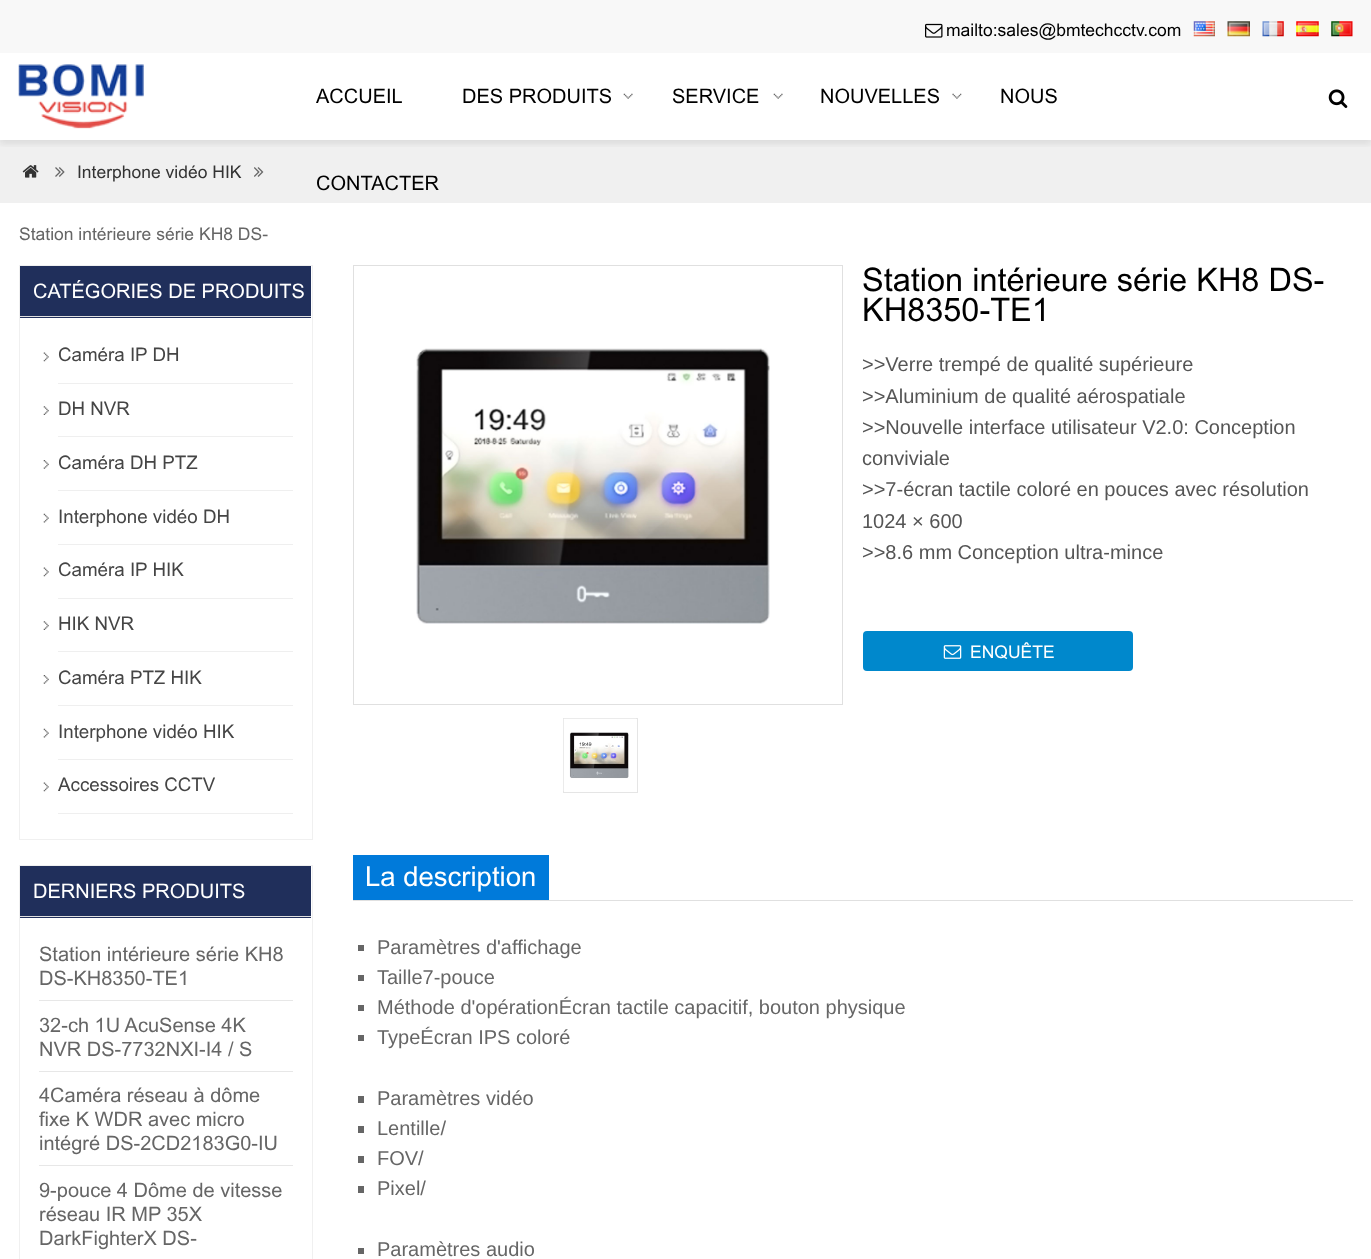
async function draw(canvas) {
  canvas.width = 1371;
  canvas.height = 1259;
  const ctx = canvas.getContext('2d');
  ctx.miterLimit = 4;
  ctx.fontKerning = 'normal';
  function label(s, x, y, font, color) {
    ctx.font = font;
    ctx.fillStyle = color;
    ctx.fillText(s, x, y);
  }
  function rect(x, y, w, h, color) {
    ctx.fillStyle = color;
    ctx.fillRect(x, y, w, h);
  }
  function roundedRect(x, y, w, h, r, color) {
    ctx.fillStyle = color;
    ctx.beginPath();
    ctx.roundRect(x, y, w, h, r);
    ctx.fill();
  }
  async function image(src, x, y, w, h) {
    const img = new Image();
    img.src = src;
    await img.decode();
    ctx.drawImage(img, x, y, w, h);
  }

  rect(0, 0, 1371, 1259, '#fff');
  rect(0, 0, 1371, 53, '#f8f8f8');
  await image('assets/img1.png', 925, 23, 18, 15);
  label('mailto:sales@bmtechcctv.com', 946, 36, '17.5px Arial', '#000');
  await image('assets/img2.png', 1193, 21, 22, 16);
  await image('assets/img3.png', 1227, 21, 23, 16);
  await image('assets/img4.png', 1262, 21, 22, 16);
  await image('assets/img5.png', 1296, 21, 23, 16);
  await image('assets/img6.png', 1331, 21, 22, 16);
  rect(0, 140, 1371, 63, '#f0f0f0');
  ctx.save();
  ctx.beginPath();
  ctx.rect(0, 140, 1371, 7);
  ctx.clip();
  ctx.fillStyle = '#3333331a';
  ctx.filter = 'blur(3px)';
  ctx.beginPath();
  ctx.rect(0, 56, 1371, 88);
  ctx.fill();
  ctx.filter = 'none';
  ctx.restore();
  await image('assets/img7.png', 18, 64, 126, 65);
  label('ACCUEIL', 316, 103, '20px Arial', '#000');
  await image('assets/img8.png', 623, 93, 10, 6);
  label('DES PRODUITS', 462, 103, '20px Arial', '#000');
  await image('assets/img9.png', 773, 93, 10, 6);
  label('SERVICE', 672, 103, '20px Arial', '#000');
  await image('assets/img10.png', 952, 93, 10, 6);
  label('NOUVELLES', 820, 103, '20px Arial', '#000');
  label('NOUS', 1000, 103, '20px Arial', '#000');
  label('CONTACTER', 316, 190, '20px Arial', '#000');
  await image('assets/img11.png', 1328, 89, 20, 19);
  await image('assets/img12.png', 22, 165, 17, 13);
  await image('assets/img13.png', 55, 167, 10, 10);
  label('Interphone vidéo HIK', 77, 178, '17.5px Arial', '#333');
  await image('assets/img14.png', 254, 167, 10, 10);
  label('Station intérieure série KH8 DS-', 19, 240, '17.5px Arial', '#666');
  ctx.strokeStyle = '#f0f0f0';
  ctx.strokeRect(19.5, 265.5, 293, 574);
  rect(20, 266, 291, 52, '#202f5b');
  rect(20, 316, 291, 1, '#e0e0e0');
  label('CATÉGORIES DE PRODUITS', 33, 298, '20px Arial', '#fff');
  rect(58, 383, 235, 1, '#efefef');
  await image('assets/img15.png', 43, 352, 6, 10);
  label('Caméra IP DH', 58, 361, '18.75px Arial', '#454545');
  rect(58, 436, 235, 1, '#efefef');
  await image('assets/img16.png', 43, 406, 6, 9);
  label('DH NVR', 58, 415, '18.75px Arial', '#454545');
  rect(58, 490, 235, 1, '#efefef');
  await image('assets/img17.png', 43, 460, 6, 9);
  label('Caméra DH PTZ', 58, 469, '18.75px Arial', '#454545');
  rect(58, 544, 235, 1, '#efefef');
  await image('assets/img18.png', 43, 513, 6, 10);
  label('Interphone vidéo DH', 58, 523, '18.75px Arial', '#454545');
  rect(58, 598, 235, 1, '#efefef');
  await image('assets/img15.png', 43, 567, 6, 10);
  label('Caméra IP HIK', 58, 576, '18.75px Arial', '#454545');
  rect(58, 651, 235, 1, '#efefef');
  await image('assets/img16.png', 43, 621, 6, 9);
  label('HIK NVR', 58, 630, '18.75px Arial', '#454545');
  rect(58, 705, 235, 1, '#efefef');
  await image('assets/img17.png', 43, 675, 6, 9);
  label('Caméra PTZ HIK', 58, 684, '18.75px Arial', '#454545');
  rect(58, 759, 235, 1, '#efefef');
  await image('assets/img18.png', 43, 728, 6, 10);
  label('Interphone vidéo HIK', 58, 738, '18.75px Arial', '#454545');
  rect(58, 813, 235, 1, '#efefef');
  await image('assets/img15.png', 43, 782, 6, 10);
  label('Accessoires CCTV', 58, 791, '18.75px Arial', '#454545');
  ctx.strokeRect(19.5, 865.5, 293, 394);
  rect(20, 866, 291, 52, '#202f5b');
  rect(20, 916, 291, 1, '#e0e0e0');
  label('DERNIERS PRODUITS', 33, 898, '20px Arial', '#fff');
  label('Station intérieure série KH8', 39, 961, '20px Arial', '#666');
  label('DS-KH8350-TE1', 39, 985, '20px Arial', '#666');
  rect(39, 1000, 254, 1, '#e7e7e7');
  label('32-ch 1U AcuSense 4K', 39, 1032, '20px Arial', '#666');
  label('NVR DS-7732NXI-I4 / S', 39, 1056, '20px Arial', '#666');
  rect(39, 1071, 254, 1, '#e7e7e7');
  label('4Caméra réseau à dôme', 39, 1102, '20px Arial', '#666');
  label('fixe K WDR avec micro', 39, 1126, '20px Arial', '#666');
  label('intégré DS-2CD2183G0-IU', 39, 1150, '20px Arial', '#666');
  rect(39, 1165, 254, 1, '#e7e7e7');
  label('9-pouce 4 Dôme de vitesse', 39, 1197, '20px Arial', '#666');
  label('réseau IR MP 35X', 39, 1221, '20px Arial', '#666');
  label('DarkFighterX DS-', 39, 1245, '20px Arial', '#666');
  ctx.strokeStyle = '#e0e0e0';
  ctx.strokeRect(353.5, 265.5, 489, 439);
  await image('assets/img19.png', 416, 348, 354, 276);
  ctx.strokeStyle = '#e5e5e5';
  ctx.strokeRect(563.5, 718.5, 74, 74);
  await image('assets/img20.png', 563, 718, 73, 73);
  label('Station intérieure série KH8 DS-', 862, 291, '32.5px Arial', '#000');
  label('KH8350-TE1', 862, 321, '32.5px Arial', '#000');
  label('>>Verre trempé de qualité supérieure', 862, 371, '20px Liberation Sans', '#555');
  label('>>Aluminium de qualité aérospatiale', 862, 403, '20px Liberation Sans', '#555');
  label('>>Nouvelle interface utilisateur V2.0: Conception', 862, 434, '20px Liberation Sans', '#555');
  label('conviviale', 862, 465, '20px Liberation Sans', '#555');
  label('>>7-écran tactile coloré en pouces avec résolution', 862, 496, '20px Liberation Sans', '#555');
  label('1024 × 600', 862, 528, '20px Liberation Sans', '#555');
  label('>>8.6 mm Conception ultra-mince', 862, 559, '20px Liberation Sans', '#555');
  roundedRect(863, 631, 270, 40, 4, '#08c');
  await image('assets/img21.png', 943, 645, 19, 14);
  label('ENQUÊTE', 970, 658, '17.5px Arial', '#fff');
  rect(353, 900, 1000, 1, '#e0e0e0');
  rect(353, 855, 196, 45, '#007ada');
  label('La description', 365, 886, '27.5px Arial', '#fff');
  rect(358, 945, 6, 6, '#666');
  label('Paramètres d\'affichage', 377, 954, '20px Liberation Sans', '#666');
  rect(358, 975, 6, 6, '#666');
  label('Taille7-pouce', 377, 984, '20px Liberation Sans', '#666');
  rect(358, 1005, 6, 6, '#666');
  label('Méthode d\'opérationÉcran tactile capacitif, bouton physique', 377, 1014, '20px Liberation Sans', '#666');
  rect(358, 1035, 6, 6, '#666');
  label('TypeÉcran IPS coloré', 377, 1044, '20px Liberation Sans', '#666');
  rect(358, 1096, 6, 7, '#666');
  label('Paramètres vidéo', 377, 1105, '20px Liberation Sans', '#666');
  rect(358, 1126, 6, 7, '#666');
  label('Lentille/', 377, 1135, '20px Liberation Sans', '#666');
  rect(358, 1156, 6, 7, '#666');
  label('FOV/', 377, 1165, '20px Liberation Sans', '#666');
  rect(358, 1186, 6, 7, '#666');
  label('Pixel/', 377, 1195, '20px Liberation Sans', '#666');
  rect(358, 1248, 6, 6, '#666');
  label('Paramètres audio', 377, 1256, '20px Liberation Sans', '#666');
}

draw(document.querySelector('canvas'));
